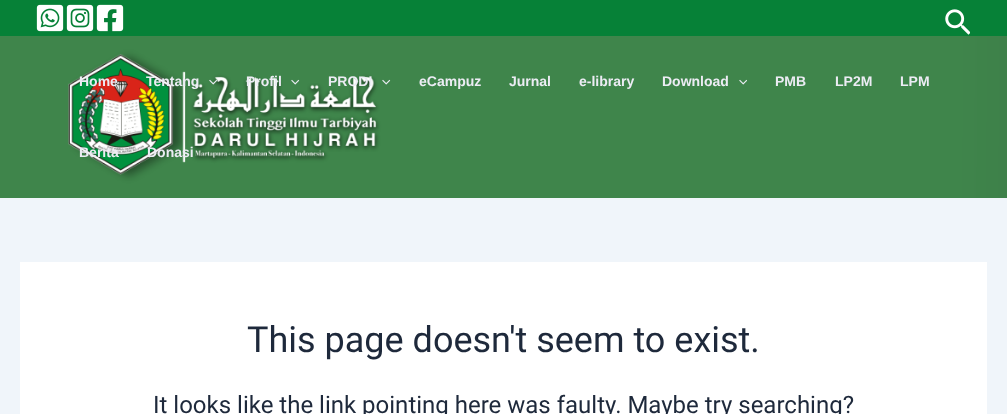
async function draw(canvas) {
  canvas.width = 1007;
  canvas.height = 414;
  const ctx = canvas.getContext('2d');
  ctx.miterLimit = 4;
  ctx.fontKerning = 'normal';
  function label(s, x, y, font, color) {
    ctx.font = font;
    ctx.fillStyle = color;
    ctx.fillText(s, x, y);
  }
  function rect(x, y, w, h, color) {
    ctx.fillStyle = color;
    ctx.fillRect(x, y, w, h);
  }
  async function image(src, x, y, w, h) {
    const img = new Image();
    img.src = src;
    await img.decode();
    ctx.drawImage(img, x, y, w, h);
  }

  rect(0, 0, 1007, 414, '#f0f5fa');
  rect(0, 0, 1007, 36, '#068137');
  await image('assets/img1.png', 36, 4, 28, 28);
  await image('assets/img2.png', 66, 4, 28, 28);
  await image('assets/img3.png', 96, 4, 28, 28);
  await image('assets/img4.png', 945, 9, 25, 26);
  await image('assets/img5.png', 0, 36, 1007, 162);
  label('Home', 79, 86, 'bold 14px Liberation Sans', '#ececf4');
  label('Tentang', 146, 86, 'bold 14px Liberation Sans', '#ececf4');
  await image('assets/img6.png', 209, 79, 9, 6);
  label('Profil', 246, 86, 'bold 14px Liberation Sans', '#ececf4');
  await image('assets/img7.png', 291, 79, 9, 6);
  label('PRODI', 328, 86, 'bold 14px Liberation Sans', '#ececf4');
  await image('assets/img7.png', 382, 79, 9, 6);
  label('eCampuz', 419, 86, 'bold 14px Liberation Sans', '#ececf4');
  label('Jurnal', 509, 86, 'bold 14px Liberation Sans', '#ececf4');
  label('e-library', 579, 86, 'bold 14px Liberation Sans', '#ececf4');
  label('Download', 662, 86, 'bold 14px Liberation Sans', '#ececf4');
  await image('assets/img8.png', 739, 79, 8, 6);
  label('PMB', 775, 86, 'bold 14px Liberation Sans', '#ececf4');
  label('LP2M', 835, 86, 'bold 14px Liberation Sans', '#ececf4');
  label('LPM', 900, 86, 'bold 14px Liberation Sans', '#ececf4');
  label('Berita', 79, 157, 'bold 14px Liberation Sans', '#ececf4');
  label('Donasi', 147, 157, 'bold 14px Liberation Sans', '#ececf4');
  rect(20, 262, 967, 152, '#fff');
  label('This page doesn\'t seem to exist.', 247, 352, '36px Roboto', '#1e293b');
  label('It looks like the link pointing here was faulty. Maybe try searching?', 153, 413, '24px Roboto', '#1e293b');
}

draw(document.querySelector('canvas'));
